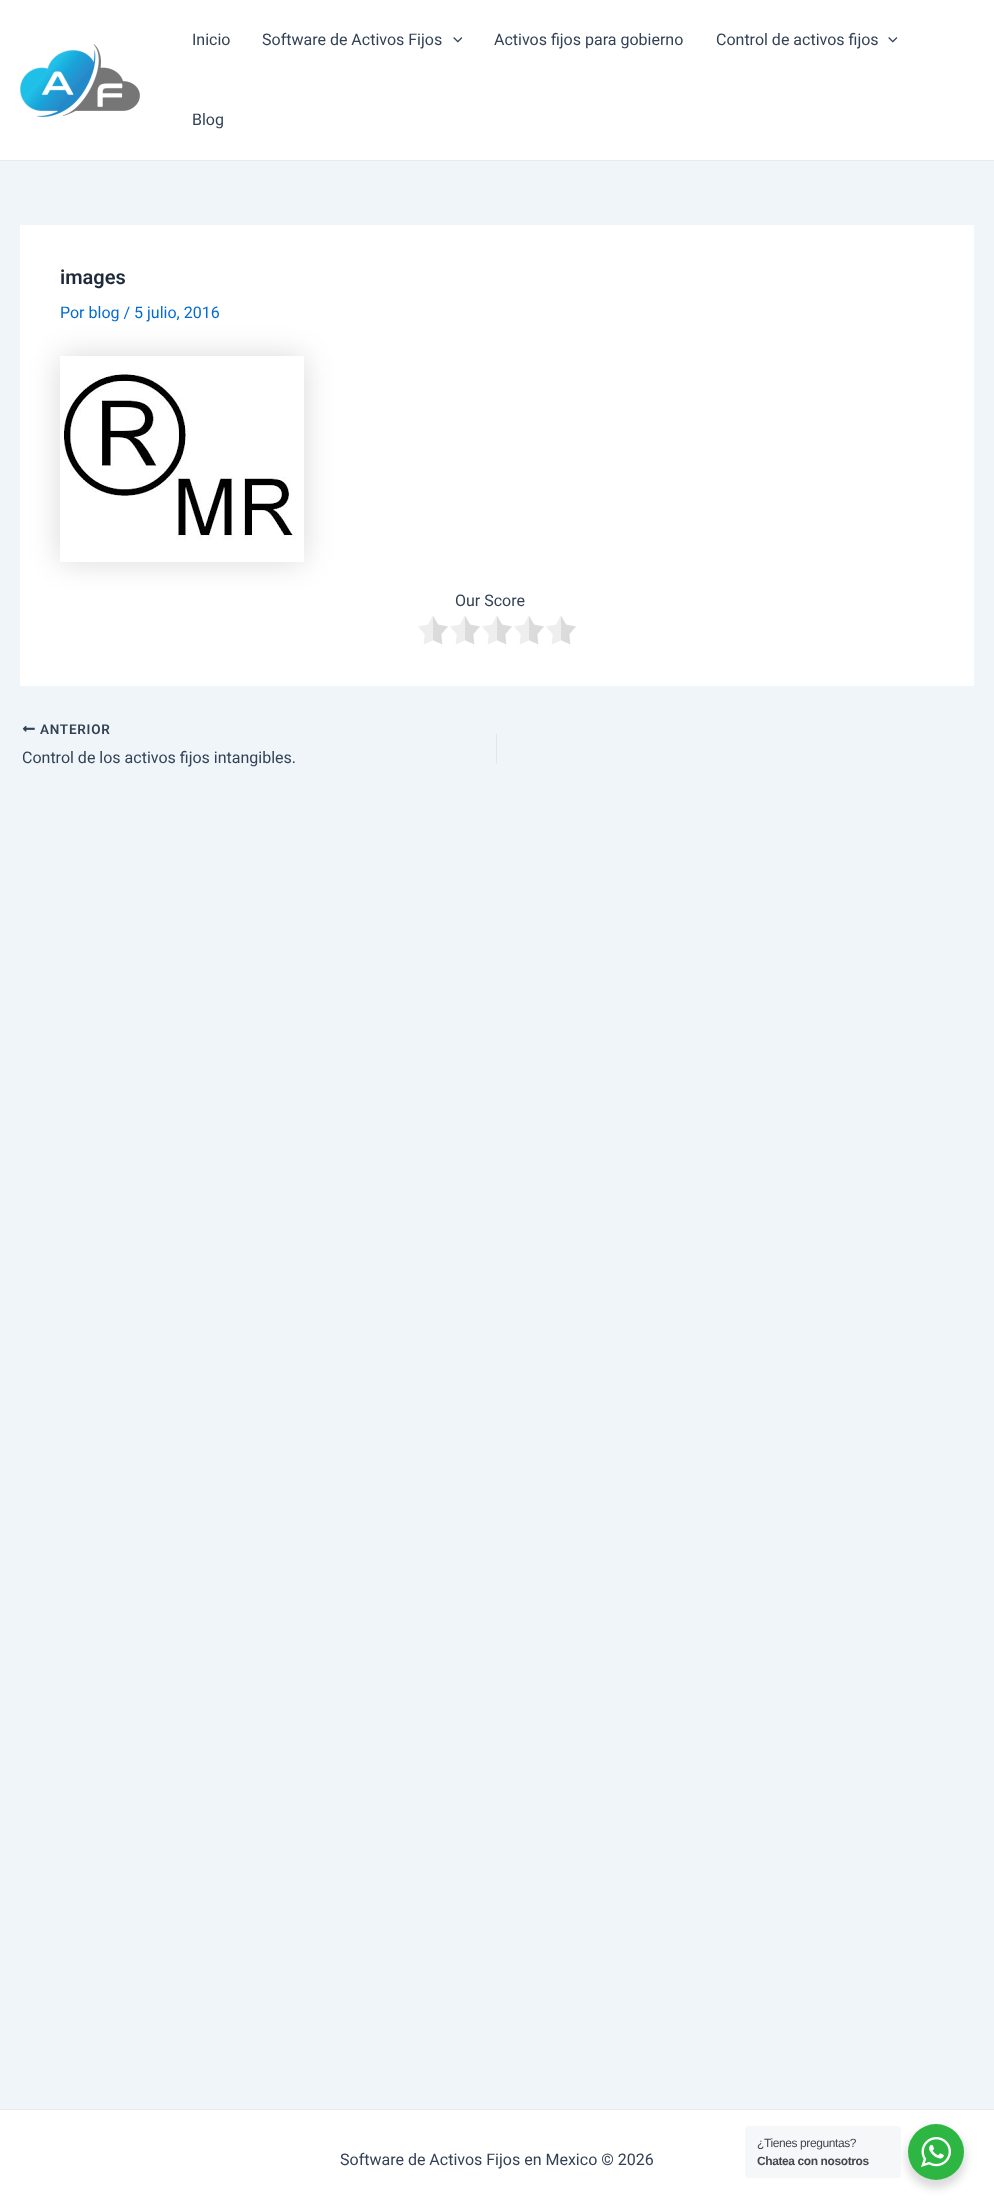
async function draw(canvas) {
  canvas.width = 994;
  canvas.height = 2210;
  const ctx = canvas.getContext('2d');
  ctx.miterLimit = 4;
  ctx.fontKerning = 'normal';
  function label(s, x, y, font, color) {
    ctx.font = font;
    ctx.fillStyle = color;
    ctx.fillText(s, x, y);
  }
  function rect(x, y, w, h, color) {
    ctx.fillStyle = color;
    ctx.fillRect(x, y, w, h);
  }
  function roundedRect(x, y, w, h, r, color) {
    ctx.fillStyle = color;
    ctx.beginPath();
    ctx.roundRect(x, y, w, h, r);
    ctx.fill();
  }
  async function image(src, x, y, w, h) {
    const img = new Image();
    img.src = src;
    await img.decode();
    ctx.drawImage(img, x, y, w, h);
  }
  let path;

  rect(0, 0, 994, 2210, '#f0f5fa');
  rect(0, 0, 994, 160, '#fff');
  rect(0, 160, 994, 1, '#eaeaea');
  await image('assets/img1.png', 20, 44, 120, 73);
  label('Inicio', 192, 45, '16px Roboto', '#334155');
  label('Software de Activos Fijos', 262, 45, '16px Roboto', '#334155');
  await image('assets/img2.png', 453, 37, 9, 6);
  label('Activos fijos para gobierno', 494, 45, '16px Roboto', '#334155');
  label('Control de activos fijos', 716, 45, '16px Roboto', '#334155');
  await image('assets/img3.png', 888, 37, 10, 6);
  label('Blog', 192, 125, '16px Roboto', '#334155');
  rect(20, 225, 954, 461, '#fff');
  label('images', 60, 284, '600 20px Roboto', '#1e293b');
  label('Por blog / 5 julio, 2016', 60, 318, '16px Roboto', '#046bd2');
  ctx.save();
  path = new Path2D('M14 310H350V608H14ZM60 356H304V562H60Z');
  ctx.clip(path, 'evenodd');
  ctx.fillStyle = '#00000026';
  ctx.filter = 'blur(15px)';
  ctx.beginPath();
  ctx.rect(60, 356, 244, 206);
  ctx.fill();
  ctx.filter = 'none';
  ctx.restore();
  await image('assets/img4.png', 61, 372, 235, 168);
  label('Our Score', 455, 606, '16px Roboto', '#334155');
  await image('assets/img5.png', 418, 616, 158, 29);
  await image('assets/img6.png', 22, 725, 13, 7);
  ctx.letterSpacing = '0.75px';
  label('ANTERIOR', 40, 734, '600 13.5px Roboto', '#334155');
  ctx.letterSpacing = '0px';
  label('Control de los activos fijos intangibles.', 22, 763, '16px Roboto', '#334155');
  rect(496, 734, 1, 30, '#e1e8ed');
  rect(0, 2110, 994, 100, '#fff');
  rect(0, 2109, 994, 1, '#eaeaea');
  label('Software de Activos Fijos en Mexico © 2026', 340, 2165, '16px Roboto', '#334155');
  ctx.fillStyle = '#00000024';
  ctx.filter = 'blur(4px)';
  ctx.beginPath();
  ctx.roundRect(906, 2128, 60, 60, 30);
  ctx.fill();
  ctx.filter = 'none';
  roundedRect(745, 2126, 156, 52, 4, '#f5f7f9');
  ctx.letterSpacing = '-0.4px';
  label('¿Tienes preguntas?', 757, 2147, '12px Liberation Sans', '#43474e');
  label('Chatea con nosotros', 757, 2165, 'bold 12px Liberation Sans', '#43474e');
  ctx.fillStyle = '#2db742';
  ctx.beginPath();
  ctx.arc(936, 2152, 28, 0, 2 * Math.PI);
  ctx.fill();
  await image('assets/img7.png', 921, 2137, 30, 30);
}

draw(document.querySelector('canvas'));
